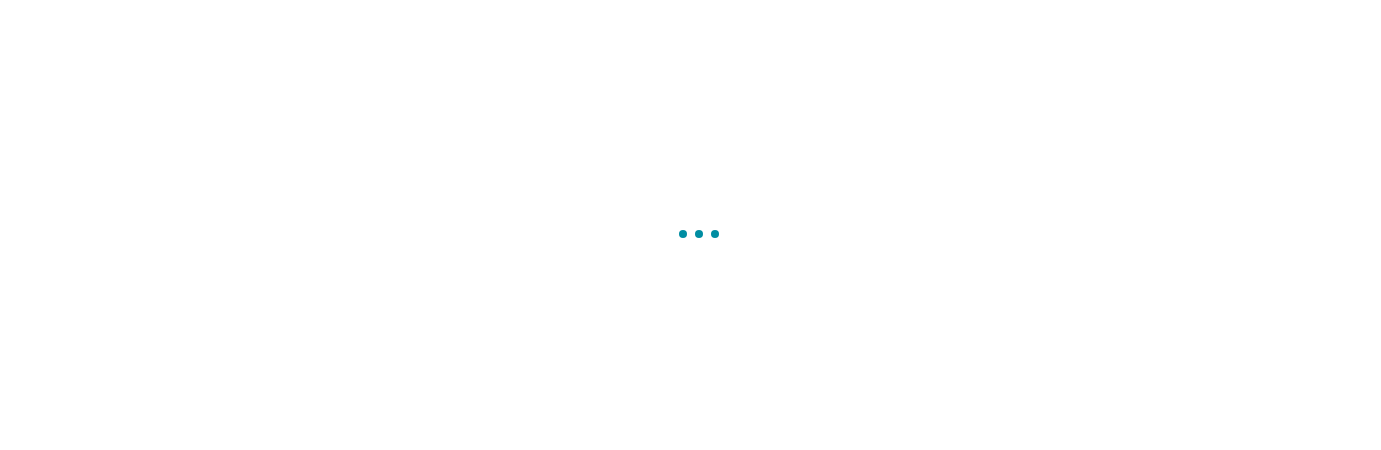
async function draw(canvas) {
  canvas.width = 1381;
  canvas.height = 450;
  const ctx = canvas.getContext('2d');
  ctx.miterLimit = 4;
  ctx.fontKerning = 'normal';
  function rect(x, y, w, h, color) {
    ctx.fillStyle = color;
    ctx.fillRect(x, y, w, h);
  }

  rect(0, 0, 1381, 450, '#fff');
  ctx.fillStyle = '#008da2';
  ctx.beginPath();
  ctx.arc(683, 234, 4, 0, 2 * Math.PI);
  ctx.fill();
  ctx.beginPath();
  ctx.arc(699, 234, 4, 0, 2 * Math.PI);
  ctx.fill();
  ctx.beginPath();
  ctx.arc(715, 234, 4, 0, 2 * Math.PI);
  ctx.fill();
}

draw(document.querySelector('canvas'));
